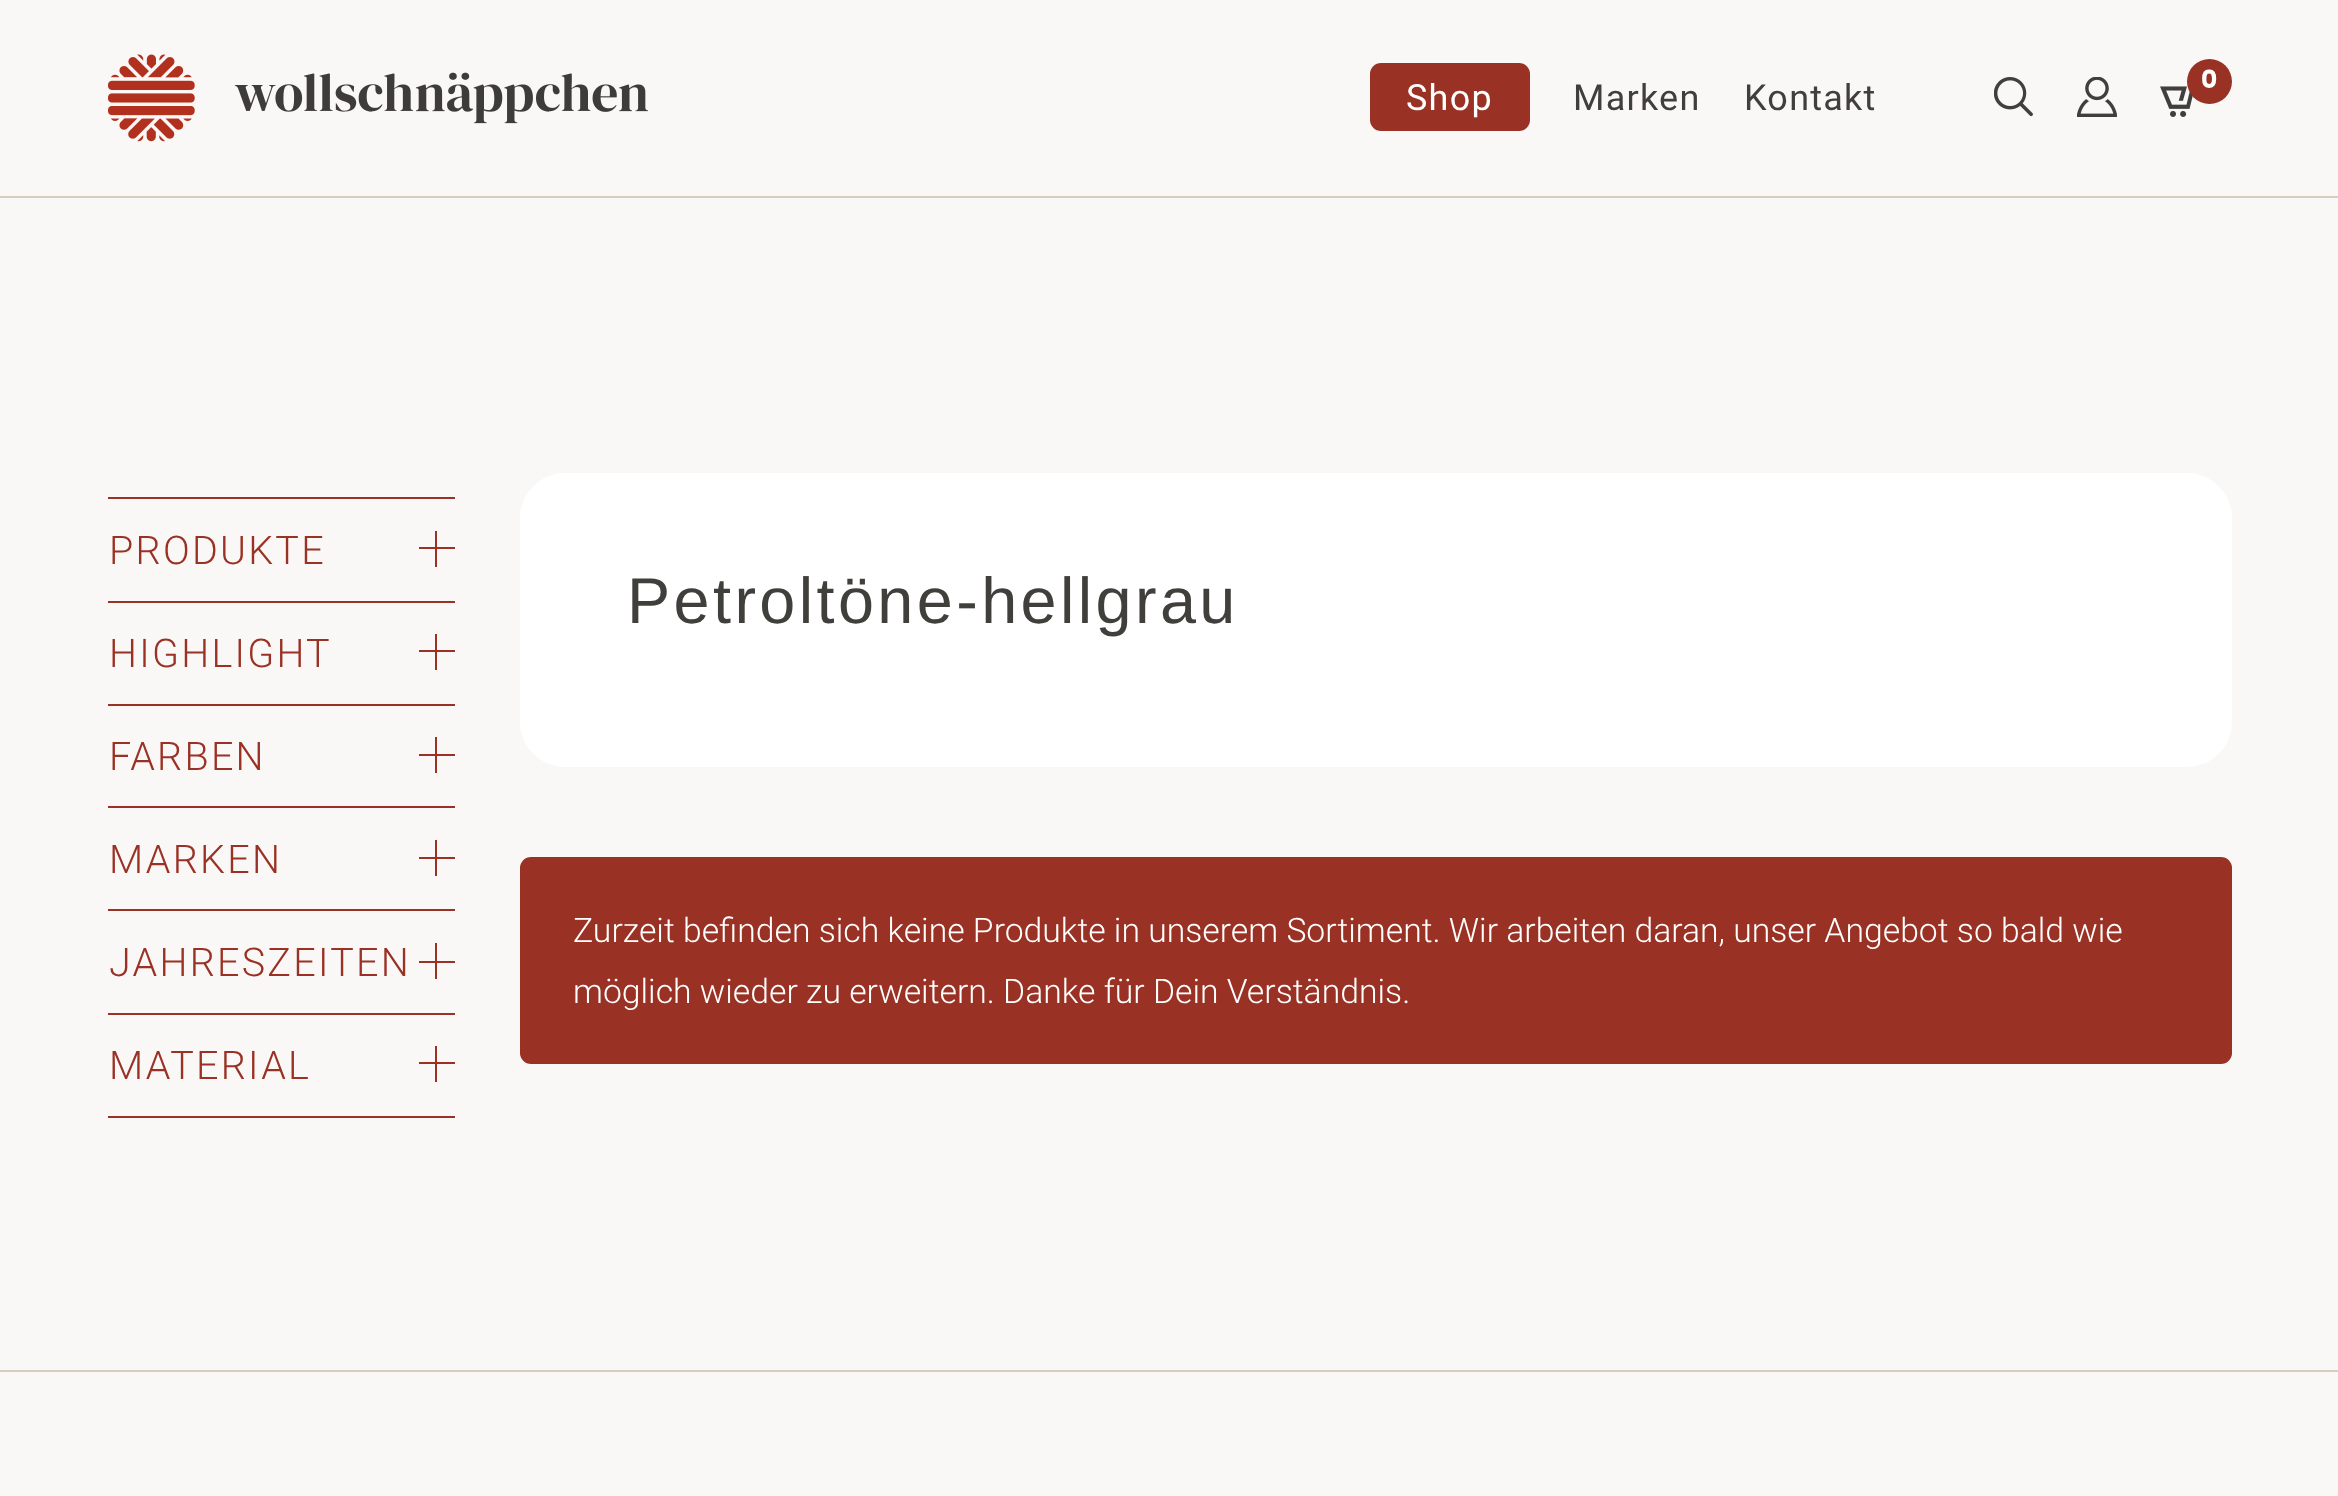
async function draw(canvas) {
  canvas.width = 2338;
  canvas.height = 1496;
  const ctx = canvas.getContext('2d');
  ctx.miterLimit = 4;
  ctx.fontKerning = 'normal';
  function label(s, x, y, font, color) {
    ctx.font = font;
    ctx.fillStyle = color;
    ctx.fillText(s, x, y);
  }
  function rect(x, y, w, h, color) {
    ctx.fillStyle = color;
    ctx.fillRect(x, y, w, h);
  }
  function roundedRect(x, y, w, h, r, color) {
    ctx.fillStyle = color;
    ctx.beginPath();
    ctx.roundRect(x, y, w, h, r);
    ctx.fill();
  }
  async function image(src, x, y, w, h) {
    const img = new Image();
    img.src = src;
    await img.decode();
    ctx.drawImage(img, x, y, w, h);
  }

  rect(0, 0, 2338, 1496, '#faf7f7');
  rect(0, 196, 2338, 2, '#d7cdc1');
  await image('assets/img1.png', 108, 54, 540, 88);
  roundedRect(1370, 63, 160, 68, 11, '#993224');
  ctx.letterSpacing = '1.25px';
  label('Shop', 1406, 110, '36px Roboto', '#fff');
  label('Marken', 1573, 110, '36px Roboto', '#403f3c');
  label('Kontakt', 1744, 110, '36px Roboto', '#403f3c');
  await image('assets/img2.png', 1994, 77, 39, 40);
  await image('assets/img3.png', 2077, 77, 40, 40);
  await image('assets/img4.png', 2160, 86, 33, 31);
  ctx.fillStyle = '#993224';
  ctx.beginPath();
  ctx.arc(2209.5, 81.5, 22.5, 0, 2 * Math.PI);
  ctx.fill();
  label('0', 2201, 88, 'bold 25px Poppins', '#fff');
  rect(108, 497, 347, 2, '#993224');
  rect(108, 601, 347, 2, '#993224');
  ctx.letterSpacing = '2.25px';
  label('PRODUKTE', 109, 564, '300 39.5px Roboto', '#993224');
  rect(419, 547, 36, 2, '#993224');
  rect(435, 531, 2, 36, '#993224');
  rect(108, 704, 347, 2, '#993224');
  label('HIGHLIGHT', 109, 667, '300 39.5px Roboto', '#993224');
  rect(419, 650, 36, 2, '#993224');
  rect(435, 634, 2, 36, '#993224');
  rect(108, 806, 347, 2, '#993224');
  label('FARBEN', 109, 770, '300 39.5px Roboto', '#993224');
  rect(419, 754, 36, 2, '#993224');
  rect(435, 737, 2, 36, '#993224');
  rect(108, 909, 347, 2, '#993224');
  label('MARKEN', 109, 873, '300 39.5px Roboto', '#993224');
  rect(419, 857, 36, 2, '#993224');
  rect(435, 840, 2, 36, '#993224');
  rect(108, 1013, 347, 2, '#993224');
  label('JAHRESZEITEN', 109, 976, '300 39.5px Roboto', '#993224');
  rect(419, 961, 36, 2, '#993224');
  rect(435, 943, 2, 36, '#993224');
  rect(108, 1116, 347, 2, '#993224');
  label('MATERIAL', 109, 1079, '300 39.5px Roboto', '#993224');
  rect(419, 1062, 36, 2, '#993224');
  rect(435, 1046, 2, 36, '#993224');
  roundedRect(520, 473, 1712, 294, 45, '#fff');
  ctx.letterSpacing = '3.4px';
  label('Petroltöne-hellgrau', 627, 623, '64.75px Liberation Sans', '#403f3c');
  roundedRect(520, 857, 1712, 207, 11, '#993224');
  ctx.letterSpacing = '0px';
  label('Zurzeit befinden sich keine Produkte in unserem Sortiment. Wir arbeiten daran, unser Angebot so bald wie', 573, 942, '300 33.75px Roboto', '#fff');
  label('möglich wieder zu erweitern. Danke für Dein Verständnis.', 573, 1003, '300 33.75px Roboto', '#fff');
  rect(0, 1370, 2338, 2, '#d7cdc1');
}

draw(document.querySelector('canvas'));
